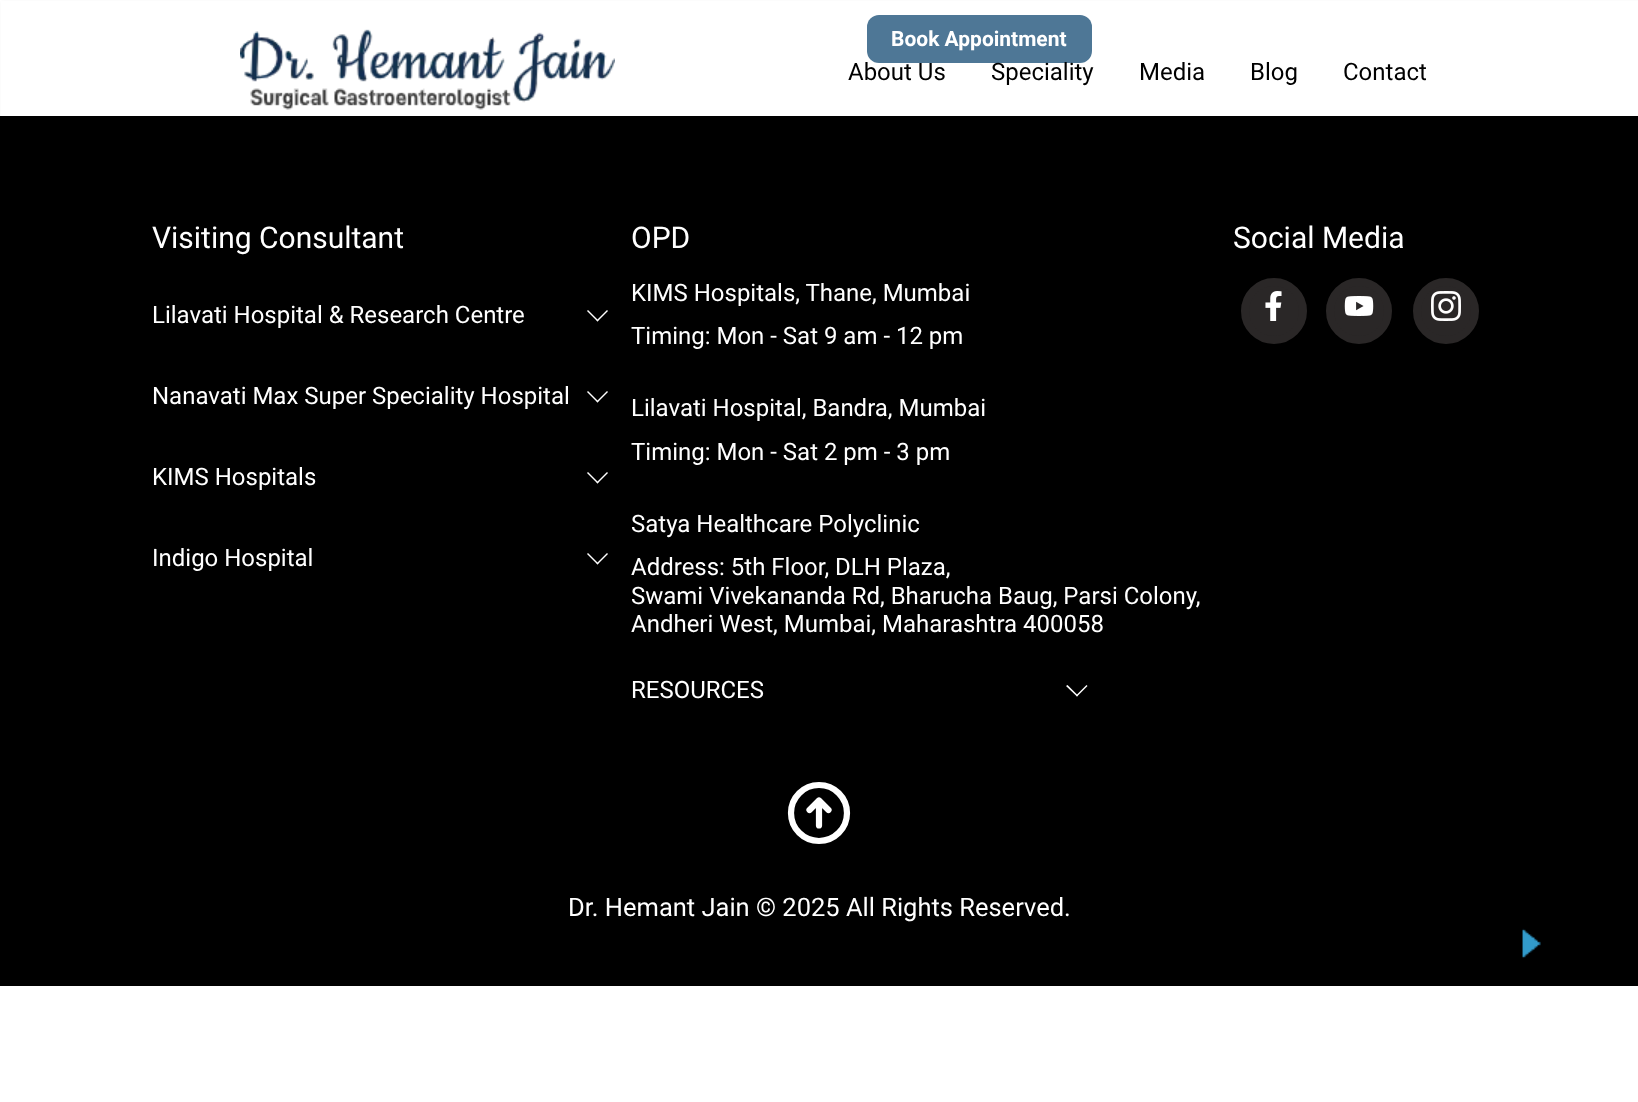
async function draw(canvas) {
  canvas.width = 1638;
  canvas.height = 1102;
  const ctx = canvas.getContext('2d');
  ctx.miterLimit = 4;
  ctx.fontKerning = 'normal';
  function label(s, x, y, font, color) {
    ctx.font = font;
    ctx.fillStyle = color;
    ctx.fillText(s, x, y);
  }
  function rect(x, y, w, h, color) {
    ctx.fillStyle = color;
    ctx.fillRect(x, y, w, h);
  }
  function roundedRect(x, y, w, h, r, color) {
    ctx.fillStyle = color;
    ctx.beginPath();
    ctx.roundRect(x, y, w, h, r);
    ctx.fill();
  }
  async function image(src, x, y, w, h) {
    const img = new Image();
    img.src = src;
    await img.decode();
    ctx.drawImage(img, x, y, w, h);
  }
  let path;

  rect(0, 0, 1638, 1102, '#fff');
  rect(0, 116, 1638, 870, '#000');
  ctx.fillStyle = '#0000001f';
  ctx.filter = 'blur(1px)';
  ctx.beginPath();
  ctx.rect(2, 2, 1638, 115);
  ctx.fill();
  ctx.filter = 'none';
  rect(1, 1, 1637, 115, '#fff');
  await image('assets/img1.png', 240, 29, 375, 81);
  roundedRect(867, 15, 225, 48, 12, '#4e7796');
  label('Book Appointment', 891, 46, 'bold 21px Roboto', '#fff');
  label('About Us', 848, 80, '24px Roboto', '#000');
  label('Speciality', 991, 80, '24px Roboto', '#000');
  label('Media', 1139, 80, '24px Roboto', '#000');
  label('Blog', 1250, 80, '24px Roboto', '#000');
  label('Contact', 1343, 80, '24px Roboto', '#000');
  label('Visiting Consultant', 152, 248, '30px Roboto', '#fff');
  label('Lilavati Hospital & Research Centre', 152, 323, '24px Roboto', '#fff');
  path = new Path2D('M608 311L597.5 321.5L596.5 320.5L607 310Z');
  ctx.fill(path);
  path = new Path2D('M598.5 320.5L597.5 321.5L587 311L588 310Z');
  ctx.fill(path);
  label('Nanavati Max Super Speciality Hospital', 152, 404, '24px Roboto', '#fff');
  path = new Path2D('M608 392L597.5 402.5L596.5 401.5L607 391Z');
  ctx.fill(path);
  path = new Path2D('M598.5 401.5L597.5 402.5L587 392L588 391Z');
  ctx.fill(path);
  label('KIMS Hospitals', 152, 485, '24px Roboto', '#fff');
  path = new Path2D('M608 473L597.5 483.5L596.5 482.5L607 472Z');
  ctx.fill(path);
  path = new Path2D('M598.5 482.5L597.5 483.5L587 473L588 472Z');
  ctx.fill(path);
  label('Indigo Hospital', 152, 566, '24px Roboto', '#fff');
  path = new Path2D('M608 554L597.5 564.5L596.5 563.5L607 553Z');
  ctx.fill(path);
  path = new Path2D('M598.5 563.5L597.5 564.5L587 554L588 553Z');
  ctx.fill(path);
  label('OPD', 631, 248, '30px Roboto', '#fff');
  label('KIMS Hospitals, Thane, Mumbai', 631, 301, '24px Roboto', '#fff');
  label('Timing: Mon - Sat 9 am - 12 pm', 631, 344, '24px Roboto', '#fff');
  label('Lilavati Hospital, Bandra, Mumbai', 631, 416, '24px Roboto', '#fff');
  label('Timing: Mon - Sat 2 pm - 3 pm', 631, 460, '24px Roboto', '#fff');
  label('Satya Healthcare Polyclinic', 631, 532, '24px Roboto', '#fff');
  label('Address: 5th Floor, DLH Plaza,', 631, 575, '24px Roboto', '#fff');
  label('Swami Vivekananda Rd, Bharucha Baug, Parsi Colony,', 631, 604, '24px Roboto', '#fff');
  label('Andheri West, Mumbai, Maharashtra 400058', 631, 632, '24px Roboto', '#fff');
  label('RESOURCES', 631, 698, '24px Roboto', '#fff');
  path = new Path2D('M1087.5 686L1077 696.5L1076 695.5L1086.5 685Z');
  ctx.fill(path);
  path = new Path2D('M1078 695.5L1077 696.5L1066 686L1067.5 685Z');
  ctx.fill(path);
  label('Social Media', 1233, 248, '30px Roboto', '#fff');
  ctx.fillStyle = '#2a2727';
  ctx.beginPath();
  ctx.arc(1274, 311, 29, 0, 2 * Math.PI);
  ctx.fill();
  ctx.strokeStyle = '#2a2727';
  ctx.lineWidth = 8;
  ctx.stroke();
  await image('assets/img2.png', 1265, 291, 17, 30);
  ctx.beginPath();
  ctx.arc(1359, 311, 29, 0, 2 * Math.PI);
  ctx.fill();
  ctx.stroke();
  await image('assets/img3.png', 1344, 296, 30, 20);
  ctx.beginPath();
  ctx.arc(1446, 311, 29, 0, 2 * Math.PI);
  ctx.fill();
  ctx.stroke();
  await image('assets/img4.png', 1431, 291, 30, 30);
  path = new Path2D('M809.5 810L819 800.5M819 800.5L828.5 810M819 800.5V825.5M819 785C834.5 785 847 797.5 847 813C847 828.5 834.5 841 819 841C803.5 841 791 828.5 791 813C791 797.5 803.5 785 819 785Z');
  ctx.strokeStyle = '#fff';
  ctx.lineWidth = 6.2;
  ctx.lineCap = 'round';
  ctx.lineJoin = 'round';
  ctx.stroke(path);
  label('Dr. Hemant Jain © 2025 All Rights Reserved.', 568, 916, '25.5px Roboto', '#fff');
  await image('assets/img5.png', 1522, 928, 19, 31);
}

draw(document.querySelector('canvas'));
